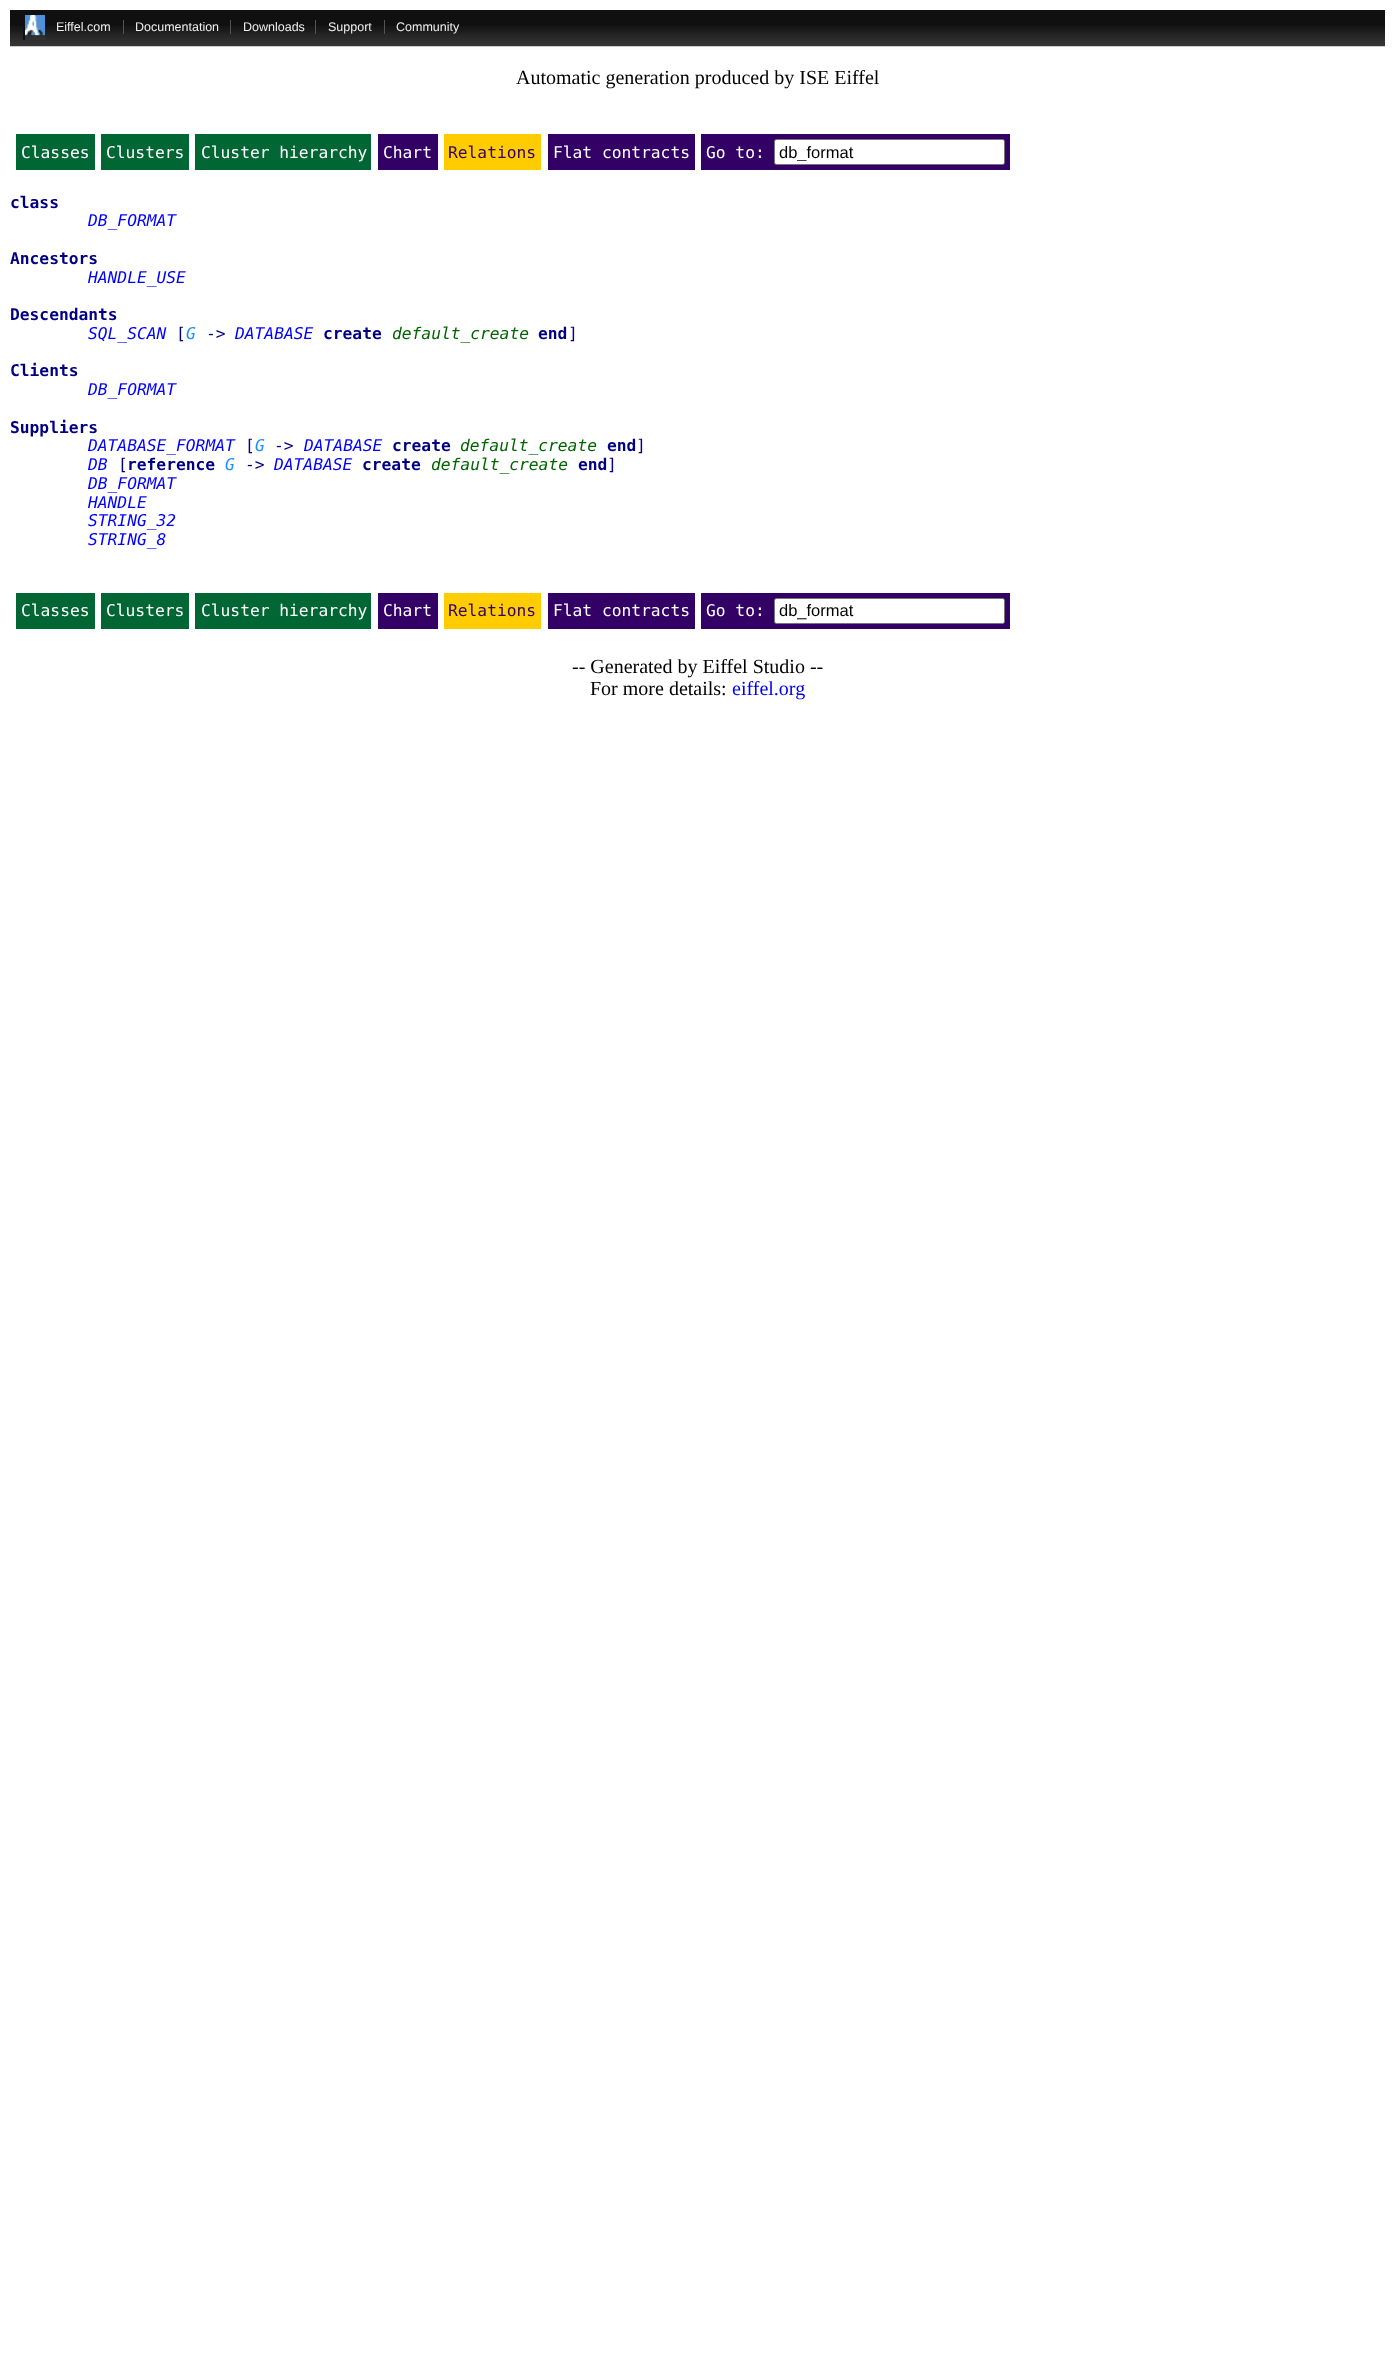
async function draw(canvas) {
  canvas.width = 1394;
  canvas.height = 2356;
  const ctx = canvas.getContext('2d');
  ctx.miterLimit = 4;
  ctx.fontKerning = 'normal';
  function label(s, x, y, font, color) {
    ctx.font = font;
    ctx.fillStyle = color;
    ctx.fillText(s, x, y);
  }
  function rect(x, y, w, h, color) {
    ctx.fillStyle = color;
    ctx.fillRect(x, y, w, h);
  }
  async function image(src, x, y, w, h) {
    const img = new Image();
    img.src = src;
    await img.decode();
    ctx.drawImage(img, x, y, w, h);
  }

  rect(0, 0, 1394, 2356, '#fff');
  rect(10, 10, 1375, 16, '#101010');
  await image('assets/img1.png', 10, 26, 1375, 21);
  rect(23, 26, 2, 14, '#101010');
  await image('assets/img2.png', 25, 15, 20, 25);
  label('Eiffel.com', 56, 31, '12.5px Liberation Sans', '#eee');
  label('Documentation', 135, 31, '12.5px Liberation Sans', '#eee');
  rect(123, 20, 1, 14, '#535353');
  label('Downloads', 243, 31, '12.5px Liberation Sans', '#eee');
  rect(230, 20, 1, 14, '#535353');
  label('Support', 328, 31, '12.5px Liberation Sans', '#eee');
  rect(315, 20, 1, 14, '#535353');
  label('Community', 396, 31, '12.5px Liberation Sans', '#eee');
  rect(384, 20, 1, 14, '#535353');
  label('Automatic generation produced by ISE Eiffel', 516, 84, '20px Liberation Serif', '#000');
  rect(16, 134, 79, 36, '#063');
  label('Classes', 21, 158, '16.25px DejaVu Sans Mono', '#fff');
  rect(101, 134, 88, 36, '#063');
  label('Clusters', 106, 158, '16.25px DejaVu Sans Mono', '#fff');
  rect(195, 134, 176, 36, '#063');
  label('Cluster hierarchy', 201, 158, '16.25px DejaVu Sans Mono', '#fff');
  rect(378, 134, 60, 36, '#306');
  label('Chart', 383, 158, '16.25px DejaVu Sans Mono', '#fff');
  rect(444, 134, 97, 36, '#fc0');
  label('Relations', 448, 158, '16.25px DejaVu Sans Mono', '#306');
  rect(548, 134, 147, 36, '#306');
  label('Flat contracts', 553, 158, '16.25px DejaVu Sans Mono', '#fff');
  rect(701, 134, 309, 36, '#306');
  label('Go to:', 706, 158, '16.25px DejaVu Sans Mono', '#fff');
  ctx.beginPath();
  ctx.roundRect(774.5, 139.5, 230, 25, 2);
  ctx.fill();
  ctx.strokeStyle = '#767676';
  ctx.stroke();
  ctx.save();
  ctx.beginPath();
  ctx.rect(779, 143, 221, 18);
  ctx.clip();
  label('db_format', 779, 158, '16.5px Liberation Sans', '#000');
  ctx.restore();
  label('class', 10, 208, 'bold 16.25px DejaVu Sans Mono', '#000080');
  label('DB_FORMAT', 88, 226, 'italic 16.25px DejaVu Sans Mono', '#00f');
  label('Ancestors', 10, 264, 'bold 16.25px DejaVu Sans Mono', '#000080');
  label('HANDLE_USE', 88, 283, 'italic 16.25px DejaVu Sans Mono', '#00f');
  label('Descendants', 10, 320, 'bold 16.25px DejaVu Sans Mono', '#000080');
  label('SQL_SCAN', 88, 339, 'italic 16.25px DejaVu Sans Mono', '#00f');
  label('[', 176, 339, '16.25px DejaVu Sans Mono', '#000080');
  label('G', 186, 339, 'italic 16.25px DejaVu Sans Mono', '#1e90ff');
  label('->', 206, 339, '16.25px DejaVu Sans Mono', '#000080');
  label('DATABASE', 235, 339, 'italic 16.25px DejaVu Sans Mono', '#00f');
  label('create', 323, 339, 'bold 16.25px DejaVu Sans Mono', '#000080');
  label('default_create', 392, 339, 'italic 16.25px DejaVu Sans Mono', '#006400');
  label('end', 538, 339, 'bold 16.25px DejaVu Sans Mono', '#000080');
  label(']', 568, 339, '16.25px DejaVu Sans Mono', '#000080');
  label('Clients', 10, 376, 'bold 16.25px DejaVu Sans Mono', '#000080');
  label('DB_FORMAT', 88, 395, 'italic 16.25px DejaVu Sans Mono', '#00f');
  label('Suppliers', 10, 433, 'bold 16.25px DejaVu Sans Mono', '#000080');
  label('DATABASE_FORMAT', 88, 451, 'italic 16.25px DejaVu Sans Mono', '#00f');
  label('[', 245, 451, '16.25px DejaVu Sans Mono', '#000080');
  label('G', 255, 451, 'italic 16.25px DejaVu Sans Mono', '#1e90ff');
  label('->', 274, 451, '16.25px DejaVu Sans Mono', '#000080');
  label('DATABASE', 304, 451, 'italic 16.25px DejaVu Sans Mono', '#00f');
  label('create', 392, 451, 'bold 16.25px DejaVu Sans Mono', '#000080');
  label('default_create', 460, 451, 'italic 16.25px DejaVu Sans Mono', '#006400');
  label('end', 607, 451, 'bold 16.25px DejaVu Sans Mono', '#000080');
  label(']', 636, 451, '16.25px DejaVu Sans Mono', '#000080');
  label('DB', 88, 470, 'italic 16.25px DejaVu Sans Mono', '#00f');
  label('[', 118, 470, '16.25px DejaVu Sans Mono', '#000080');
  label('reference', 127, 470, 'bold 16.25px DejaVu Sans Mono', '#000080');
  label('G', 225, 470, 'italic 16.25px DejaVu Sans Mono', '#1e90ff');
  label('->', 245, 470, '16.25px DejaVu Sans Mono', '#000080');
  label('DATABASE', 274, 470, 'italic 16.25px DejaVu Sans Mono', '#00f');
  label('create', 362, 470, 'bold 16.25px DejaVu Sans Mono', '#000080');
  label('default_create', 431, 470, 'italic 16.25px DejaVu Sans Mono', '#006400');
  label('end', 578, 470, 'bold 16.25px DejaVu Sans Mono', '#000080');
  label(']', 607, 470, '16.25px DejaVu Sans Mono', '#000080');
  label('DB_FORMAT', 88, 489, 'italic 16.25px DejaVu Sans Mono', '#00f');
  label('HANDLE', 88, 508, 'italic 16.25px DejaVu Sans Mono', '#00f');
  label('STRING_32', 88, 526, 'italic 16.25px DejaVu Sans Mono', '#00f');
  label('STRING_8', 88, 545, 'italic 16.25px DejaVu Sans Mono', '#00f');
  rect(16, 593, 79, 36, '#063');
  label('Classes', 21, 616, '16.25px DejaVu Sans Mono', '#fff');
  rect(101, 593, 88, 36, '#063');
  label('Clusters', 106, 616, '16.25px DejaVu Sans Mono', '#fff');
  rect(195, 593, 176, 36, '#063');
  label('Cluster hierarchy', 201, 616, '16.25px DejaVu Sans Mono', '#fff');
  rect(378, 593, 60, 36, '#306');
  label('Chart', 383, 616, '16.25px DejaVu Sans Mono', '#fff');
  rect(444, 593, 97, 36, '#fc0');
  label('Relations', 448, 616, '16.25px DejaVu Sans Mono', '#306');
  rect(548, 593, 147, 36, '#306');
  label('Flat contracts', 553, 616, '16.25px DejaVu Sans Mono', '#fff');
  rect(701, 593, 309, 36, '#306');
  label('Go to:', 706, 616, '16.25px DejaVu Sans Mono', '#fff');
  ctx.beginPath();
  ctx.roundRect(774.5, 598.5, 230, 25, 2);
  ctx.fill();
  ctx.stroke();
  label('db_format', 779, 616, '16.5px Liberation Sans', '#000');
  label('-- Generated by Eiffel Studio --', 572, 673, '20px Liberation Serif', '#000');
  label('For more details:', 590, 695, '20px Liberation Serif', '#000');
  label('eiffel.org', 732, 695, '20px Liberation Serif', '#00e');
}

draw(document.querySelector('canvas'));
